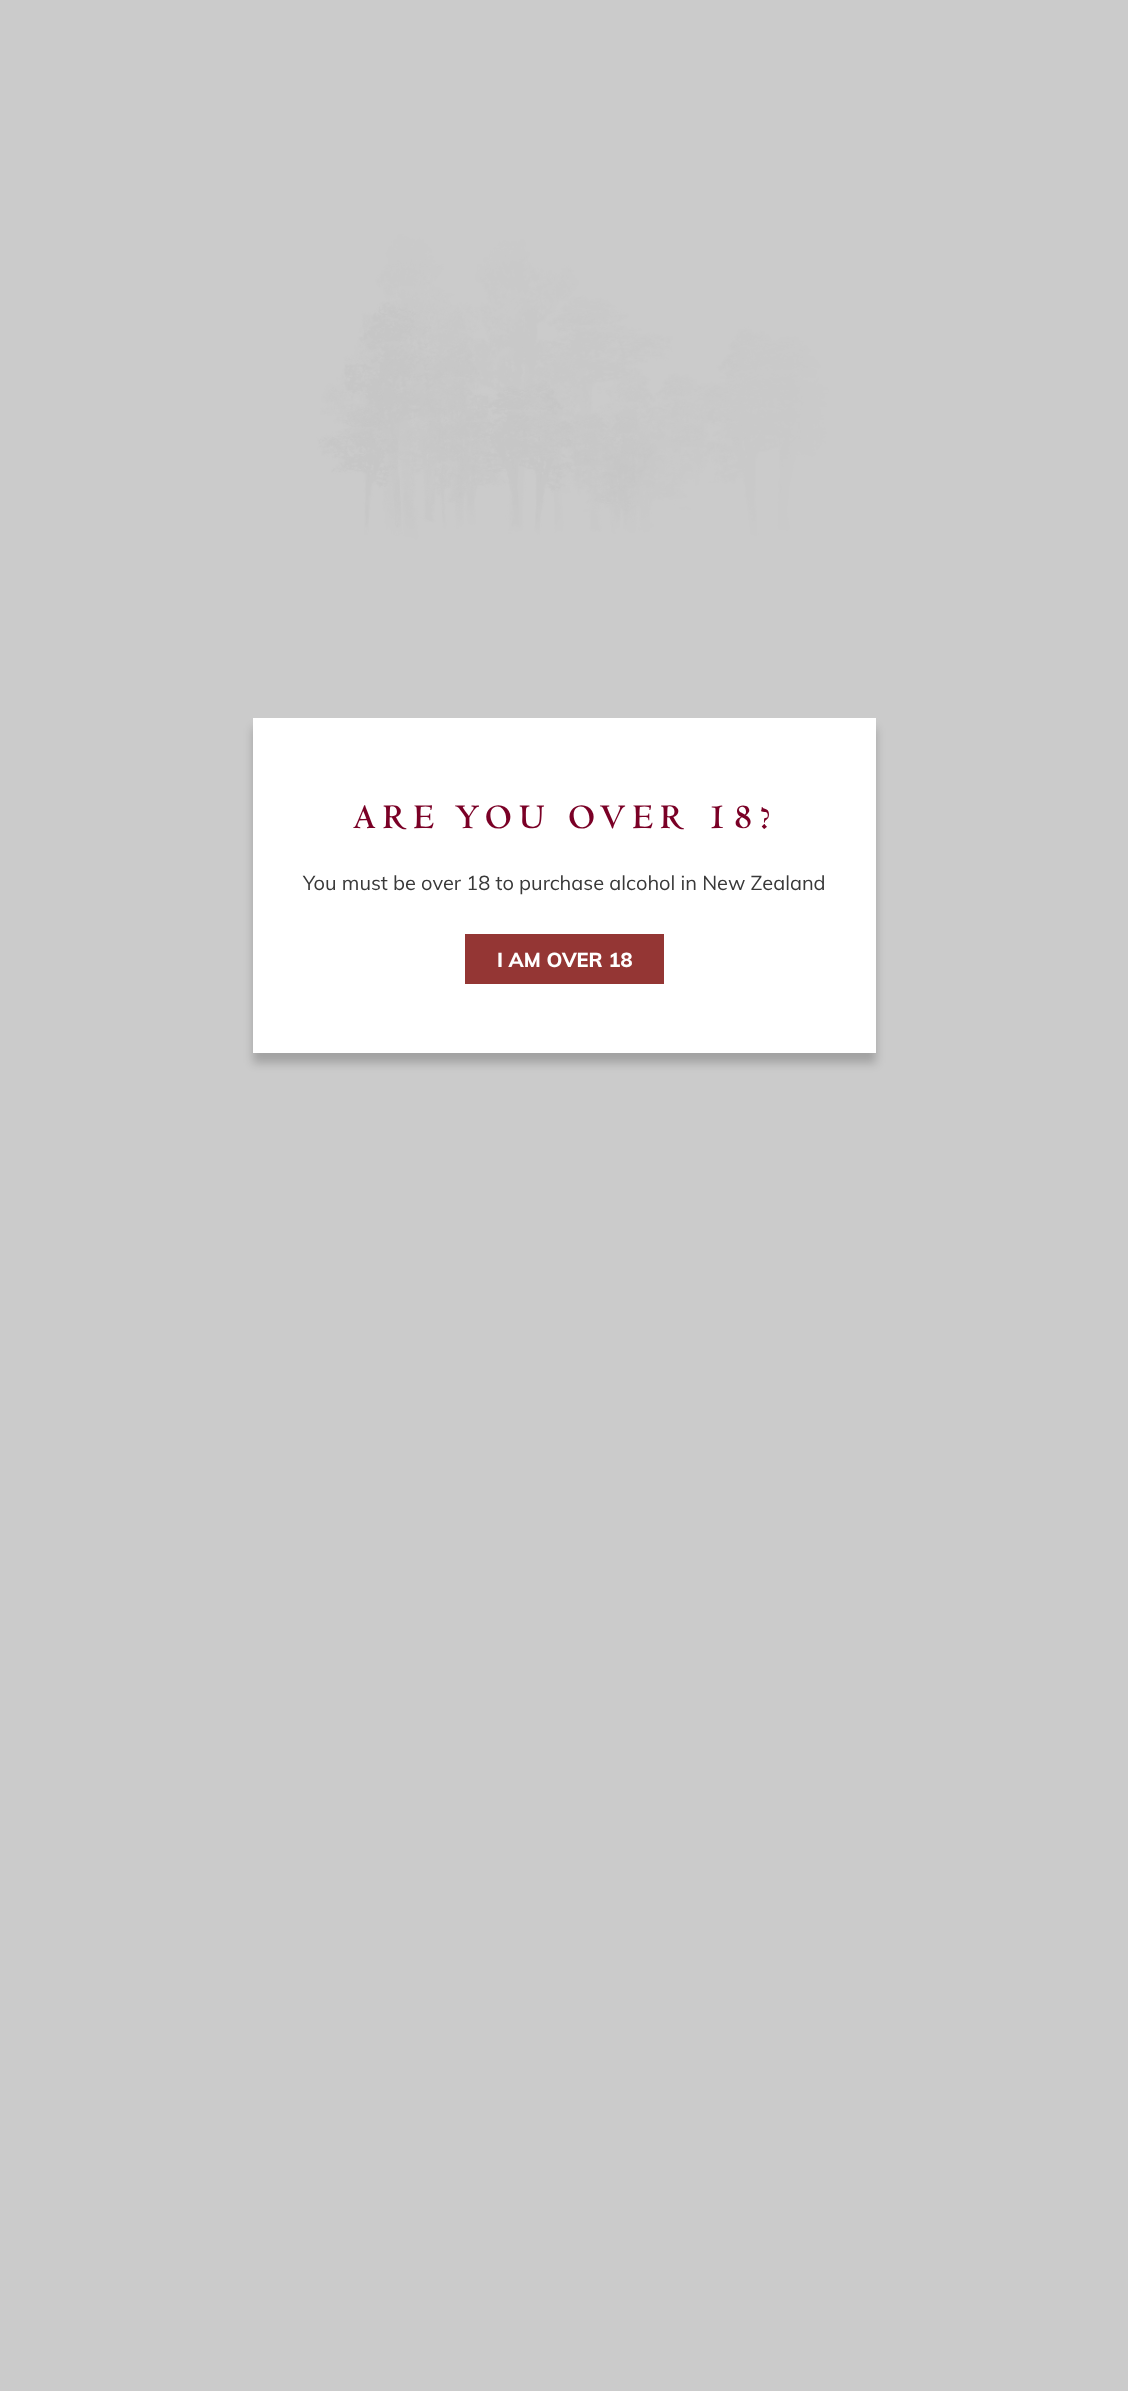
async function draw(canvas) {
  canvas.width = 1128;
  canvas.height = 2391;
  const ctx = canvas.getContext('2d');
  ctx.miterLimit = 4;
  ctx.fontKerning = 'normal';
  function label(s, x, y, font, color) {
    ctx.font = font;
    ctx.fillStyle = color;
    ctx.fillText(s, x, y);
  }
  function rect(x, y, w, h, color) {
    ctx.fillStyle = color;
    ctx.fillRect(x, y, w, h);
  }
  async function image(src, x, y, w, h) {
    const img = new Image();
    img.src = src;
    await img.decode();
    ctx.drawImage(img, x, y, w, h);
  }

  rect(0, 0, 1128, 2391, '#cbcbcb');
  await image('assets/img1.png', 316, 234, 513, 306);
  ctx.fillStyle = '#00000033';
  ctx.filter = 'blur(5px)';
  ctx.beginPath();
  ctx.rect(253, 728, 623, 335);
  ctx.fill();
  ctx.filter = 'none';
  rect(253, 718, 623, 335, '#fff');
  ctx.letterSpacing = '7.25px';
  label('ARE YOU OVER 18?', 353, 828, 'bold 36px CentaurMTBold', '#7a0026');
  ctx.letterSpacing = '0px';
  label('You must be over 18 to purchase alcohol in New Zealand', 303, 890, '20px Muli', '#393939');
  rect(465, 934, 199, 50, '#943634');
  label('I AM OVER 18', 497, 967, '800 20px Muli', '#fff');
}

draw(document.querySelector('canvas'));
